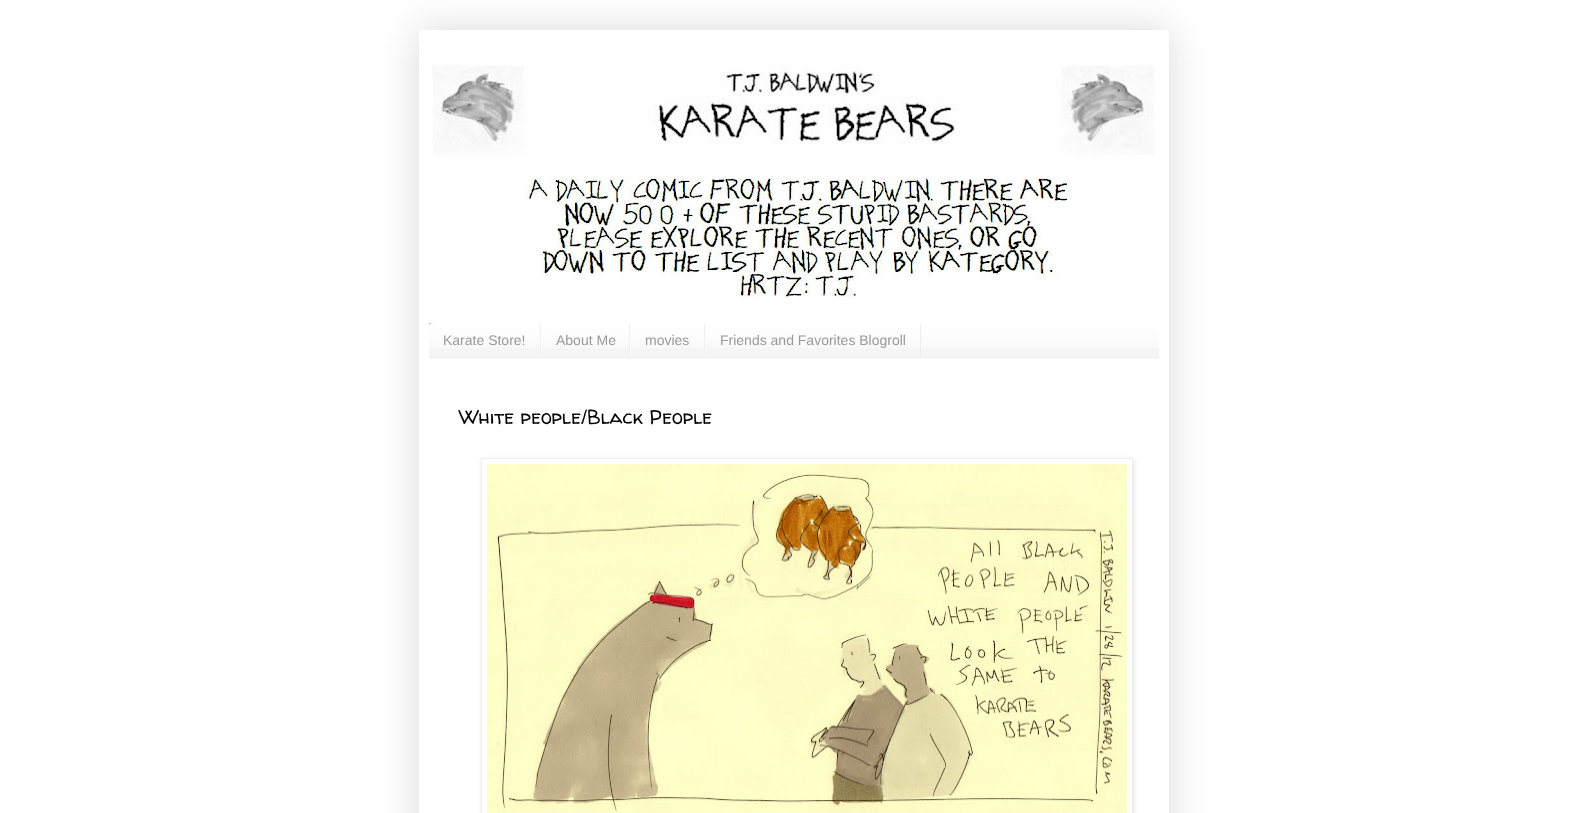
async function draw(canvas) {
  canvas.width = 1588;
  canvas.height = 813;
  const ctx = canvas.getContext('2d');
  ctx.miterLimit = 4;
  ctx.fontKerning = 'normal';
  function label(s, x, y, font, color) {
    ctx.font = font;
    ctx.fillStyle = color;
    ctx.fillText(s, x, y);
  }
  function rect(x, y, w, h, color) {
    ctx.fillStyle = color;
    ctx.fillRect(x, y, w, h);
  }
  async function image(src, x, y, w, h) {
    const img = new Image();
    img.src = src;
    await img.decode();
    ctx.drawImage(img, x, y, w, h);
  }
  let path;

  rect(0, 0, 1588, 813, '#fff');
  ctx.save();
  path = new Path2D('M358 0H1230V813H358ZM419 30H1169V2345H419Z');
  ctx.clip(path, 'evenodd');
  ctx.fillStyle = '#00000026';
  ctx.filter = 'blur(20px)';
  ctx.beginPath();
  ctx.rect(419, 30, 750, 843);
  ctx.fill();
  ctx.filter = 'none';
  ctx.restore();
  await image('assets/img1.png', 429, 65, 726, 259);
  rect(429, 325, 730, 32, '#f5f5f5');
  await image('assets/img2.png', 429, 324, 730, 24);
  rect(429, 357, 730, 1, '#eee');
  rect(540, 324, 1, 33, '#eee');
  label('Karate Store!', 443, 345, '14px Liberation Sans', '#999');
  rect(629, 324, 1, 33, '#eee');
  rect(541, 335, 1, 22, '#fff');
  label('About Me', 556, 345, '14px Liberation Sans', '#999');
  rect(704, 324, 1, 33, '#eee');
  rect(630, 335, 1, 22, '#fff');
  label('movies', 645, 345, '14px Liberation Sans', '#999');
  rect(920, 324, 1, 33, '#eee');
  rect(705, 335, 1, 22, '#fff');
  label('Friends and Favorites Blogroll', 720, 345, '14px Liberation Sans', '#999');
  label('White people/Black People', 459, 424, '20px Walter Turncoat', '#000');
  ctx.save();
  path = new Path2D('M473 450H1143V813H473ZM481 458H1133V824H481Z');
  ctx.clip(path, 'evenodd');
  ctx.fillStyle = '#0000001a';
  ctx.filter = 'blur(2.5px)';
  ctx.beginPath();
  ctx.rect(482, 459, 652, 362);
  ctx.fill();
  ctx.filter = 'none';
  ctx.restore();
  ctx.strokeStyle = '#eee';
  ctx.strokeRect(481.5, 458.5, 651, 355);
  await image('assets/img3.png', 487, 464, 640, 349);
}

draw(document.querySelector('canvas'));
